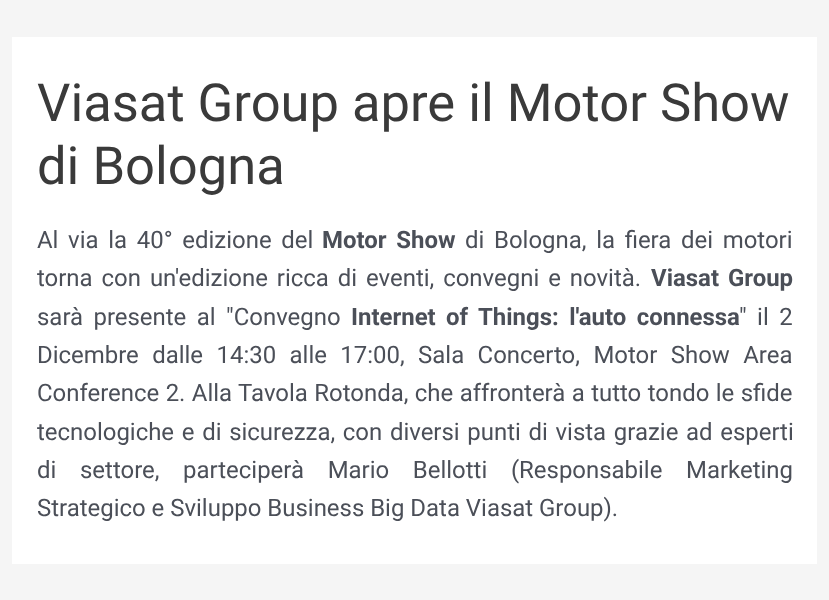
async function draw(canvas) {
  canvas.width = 829;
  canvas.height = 600;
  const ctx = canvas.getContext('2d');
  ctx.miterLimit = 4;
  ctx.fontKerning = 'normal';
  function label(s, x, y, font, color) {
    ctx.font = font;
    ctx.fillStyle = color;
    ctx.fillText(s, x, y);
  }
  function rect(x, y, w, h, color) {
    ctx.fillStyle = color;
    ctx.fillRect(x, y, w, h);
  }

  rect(0, 0, 829, 600, '#f5f5f5');
  rect(12, 37, 805, 527, '#fff');
  label('Viasat Group apre il Motor Show', 37, 121, '52.5px Roboto', '#3a3a3a');
  label('di Bologna', 37, 184, '52.5px Roboto', '#3a3a3a');
  ctx.wordSpacing = '3.75px';
  label('Al via la 40° edizione del', 37, 248, '23.95px Roboto', '#4b4f58');
  label('Motor Show', 322, 248, 'bold 23.95px Roboto', '#4b4f58');
  label('di Bologna, la fiera dei motori', 465, 248, '23.95px Roboto', '#4b4f58');
  ctx.wordSpacing = '3px';
  label('torna con un\'edizione ricca di eventi, convegni e novità.', 37, 286, '23.95px Roboto', '#4b4f58');
  label('Viasat Group', 651, 286, 'bold 23.95px Roboto', '#4b4f58');
  ctx.wordSpacing = '4.5px';
  label('sarà presente al "Convegno', 37, 325, '23.95px Roboto', '#4b4f58');
  label('Internet of Things: l\'auto connessa', 351, 325, 'bold 23.95px Roboto', '#4b4f58');
  label('" il 2', 739, 325, '23.95px Roboto', '#4b4f58');
  ctx.wordSpacing = '7.5px';
  label('Dicembre dalle 14:30 alle 17:00, Sala Concerto, Motor Show Area', 37, 363, '23.95px Roboto', '#4b4f58');
  ctx.wordSpacing = '0.5px';
  label('Conference 2. Alla Tavola Rotonda, che affronterà a tutto tondo le sfide', 37, 401, '23.95px Roboto', '#4b4f58');
  ctx.wordSpacing = '1.75px';
  label('tecnologiche e di sicurezza, con diversi punti di vista grazie ad esperti', 37, 440, '23.95px Roboto', '#4b4f58');
  ctx.wordSpacing = '17.75px';
  label('di settore, parteciperà Mario Bellotti (Responsabile Marketing', 37, 478, '23.95px Roboto', '#4b4f58');
  ctx.wordSpacing = '0px';
  label('Strategico e Sviluppo Business Big Data Viasat Group).', 37, 516, '23.95px Roboto', '#4b4f58');
}

draw(document.querySelector('canvas'));
